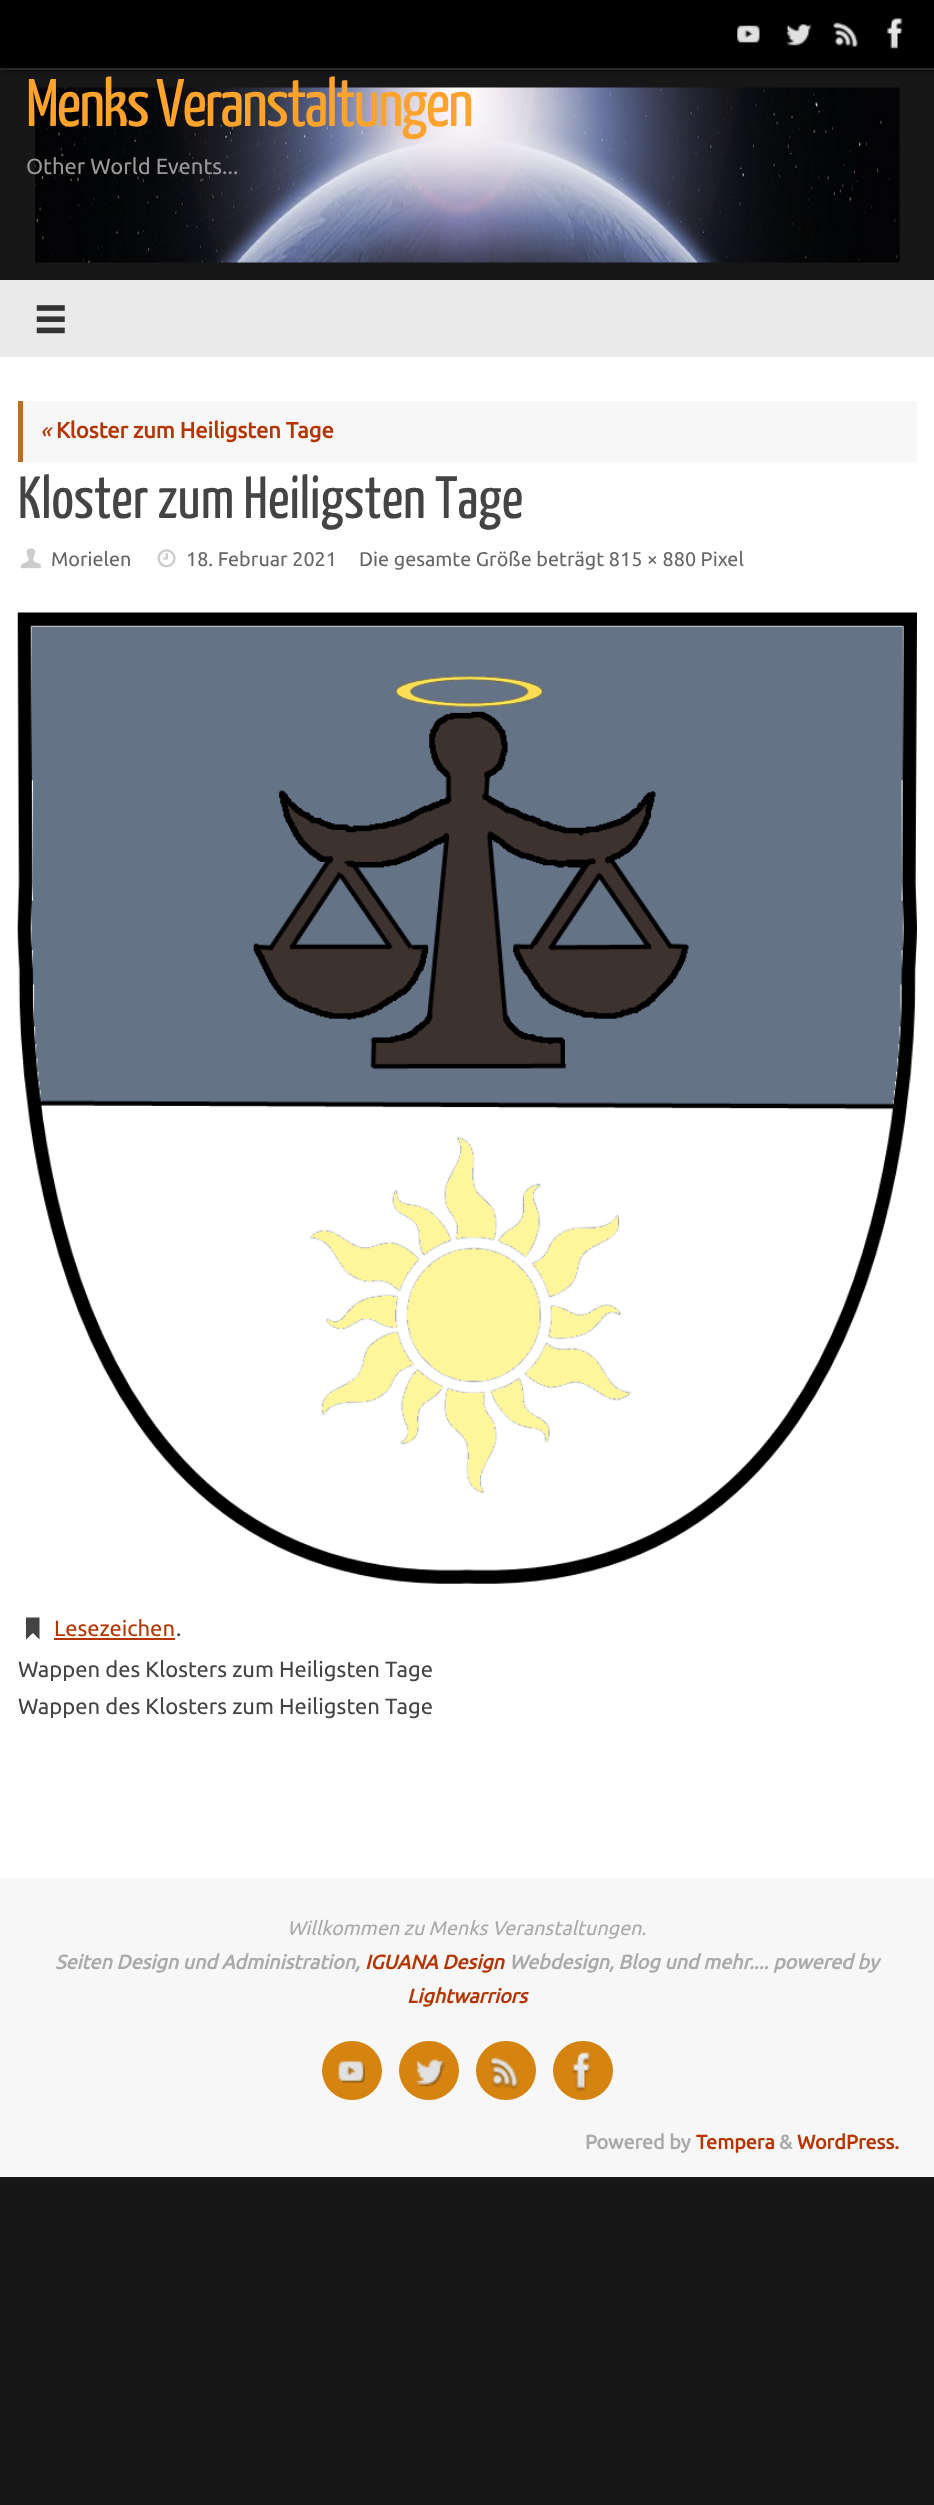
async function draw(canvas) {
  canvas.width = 934;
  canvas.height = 2505;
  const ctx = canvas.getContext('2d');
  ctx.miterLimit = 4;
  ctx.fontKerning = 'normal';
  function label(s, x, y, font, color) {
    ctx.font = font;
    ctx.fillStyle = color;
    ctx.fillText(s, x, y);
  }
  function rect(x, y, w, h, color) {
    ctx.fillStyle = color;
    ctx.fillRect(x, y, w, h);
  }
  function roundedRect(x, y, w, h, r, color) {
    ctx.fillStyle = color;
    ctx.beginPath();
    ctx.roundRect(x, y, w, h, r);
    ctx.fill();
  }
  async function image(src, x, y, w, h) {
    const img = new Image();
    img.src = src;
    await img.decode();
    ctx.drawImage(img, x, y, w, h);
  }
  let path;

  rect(0, 0, 934, 2505, '#171717');
  ctx.fillStyle = '#000';
  ctx.filter = 'blur(2.5px)';
  ctx.beginPath();
  ctx.rect(5, 0, 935, 70);
  ctx.fill();
  ctx.filter = 'none';
  rect(0, 0, 934, 68, '#000');
  rect(0, 68, 934, 2, '#282828');
  await image('assets/img1.png', 737, 25, 23, 18);
  await image('assets/img2.png', 786, 24, 26, 22);
  await image('assets/img3.png', 833, 22, 25, 25);
  await image('assets/img4.png', 886, 18, 17, 31);
  await image('assets/img5.png', 35, 87, 865, 176);
  ctx.letterSpacing = '-2px';
  label('Menks Veranstaltungen', 26, 126, '67.25px Yanone Kaffeesatz', '#ffa32d');
  ctx.letterSpacing = '0px';
  label('Other World Events...', 26, 174, '22px Ubuntu', '#999');
  rect(0, 280, 934, 77, '#eaeaea');
  await image('assets/img6.png', 36, 305, 29, 29);
  rect(0, 357, 934, 1521, '#fff');
  rect(23, 401, 894, 61, '#f7f7f7');
  rect(18, 401, 5, 61, '#bd6d23');
  label('«', 40, 438, 'italic 22px Ubuntu', '#b63400');
  label('Kloster zum Heiligsten Tage', 56, 438, 'bold 22px Ubuntu', '#b63400');
  label('Kloster zum Heiligsten Tage', 18, 518, '59.5px Yanone Kaffeesatz', '#444');
  await image('assets/img7.png', 21, 548, 20, 21);
  label('Morielen', 51, 566, '19.8px Ubuntu', '#666');
  await image('assets/img8.png', 157, 549, 19, 19);
  label('18. Februar 2021', 186, 566, '19.8px Ubuntu', '#666');
  label('Die gesamte Größe beträgt 815 × 880 Pixel', 359, 566, '19.8px Ubuntu', '#666');
  await image('assets/img9.png', 17, 612, 900, 972);
  ctx.fillStyle = '#444';
  path = new Path2D('M26 1637.5V1617.5H39.5V1639.5L33 1633L26 1639.5Z');
  ctx.fill(path);
  label('Lesezeichen', 54, 1636, '22px Ubuntu', '#b63400');
  rect(54, 1638, 121, 2, '#b63400');
  label('.', 176, 1636, '22px Ubuntu', '#444');
  label('Wappen des Klosters zum Heiligsten Tage', 18, 1677, '22px Ubuntu', '#444');
  label('Wappen des Klosters zum Heiligsten Tage', 18, 1714, '22px Ubuntu', '#444');
  rect(0, 1878, 934, 299, '#f7f7f7');
  label('Willkommen zu Menks Veranstaltungen.', 287, 1935, 'italic 19.8px Ubuntu', '#aaa');
  label('Seiten Design und Administration,', 55, 1969, 'italic bold 19.8px Ubuntu', '#aaa');
  label('IGUANA Design', 365, 1969, 'italic bold 19.8px Ubuntu', '#b63400');
  label('Webdesign, Blog und mehr.... powered by', 509, 1969, 'italic bold 19.8px Ubuntu', '#aaa');
  label('Lightwarriors', 407, 2003, 'italic bold 19.8px Ubuntu', '#b63400');
  roundedRect(322, 2041, 60, 59, 29.5, '#d58311');
  await image('assets/img10.png', 338, 2061, 27, 22);
  roundedRect(399, 2041, 60, 59, 29.5, '#d58311');
  await image('assets/img11.png', 415, 2059, 30, 28);
  roundedRect(476, 2041, 60, 59, 29.5, '#d58311');
  await image('assets/img12.png', 489, 2057, 30, 33);
  roundedRect(553, 2041, 60, 59, 29.5, '#d58311');
  await image('assets/img13.png', 571, 2052, 20, 40);
  label('Powered by', 585, 2149, 'bold 19.8px Ubuntu', '#aaa');
  label('Tempera', 696, 2149, 'bold 19.8px Ubuntu', '#b63400');
  label('&', 779, 2149, 'bold 19.8px Ubuntu', '#aaa');
  label('WordPress.', 797, 2149, 'bold 19.8px Ubuntu', '#b63400');
}

draw(document.querySelector('canvas'));
